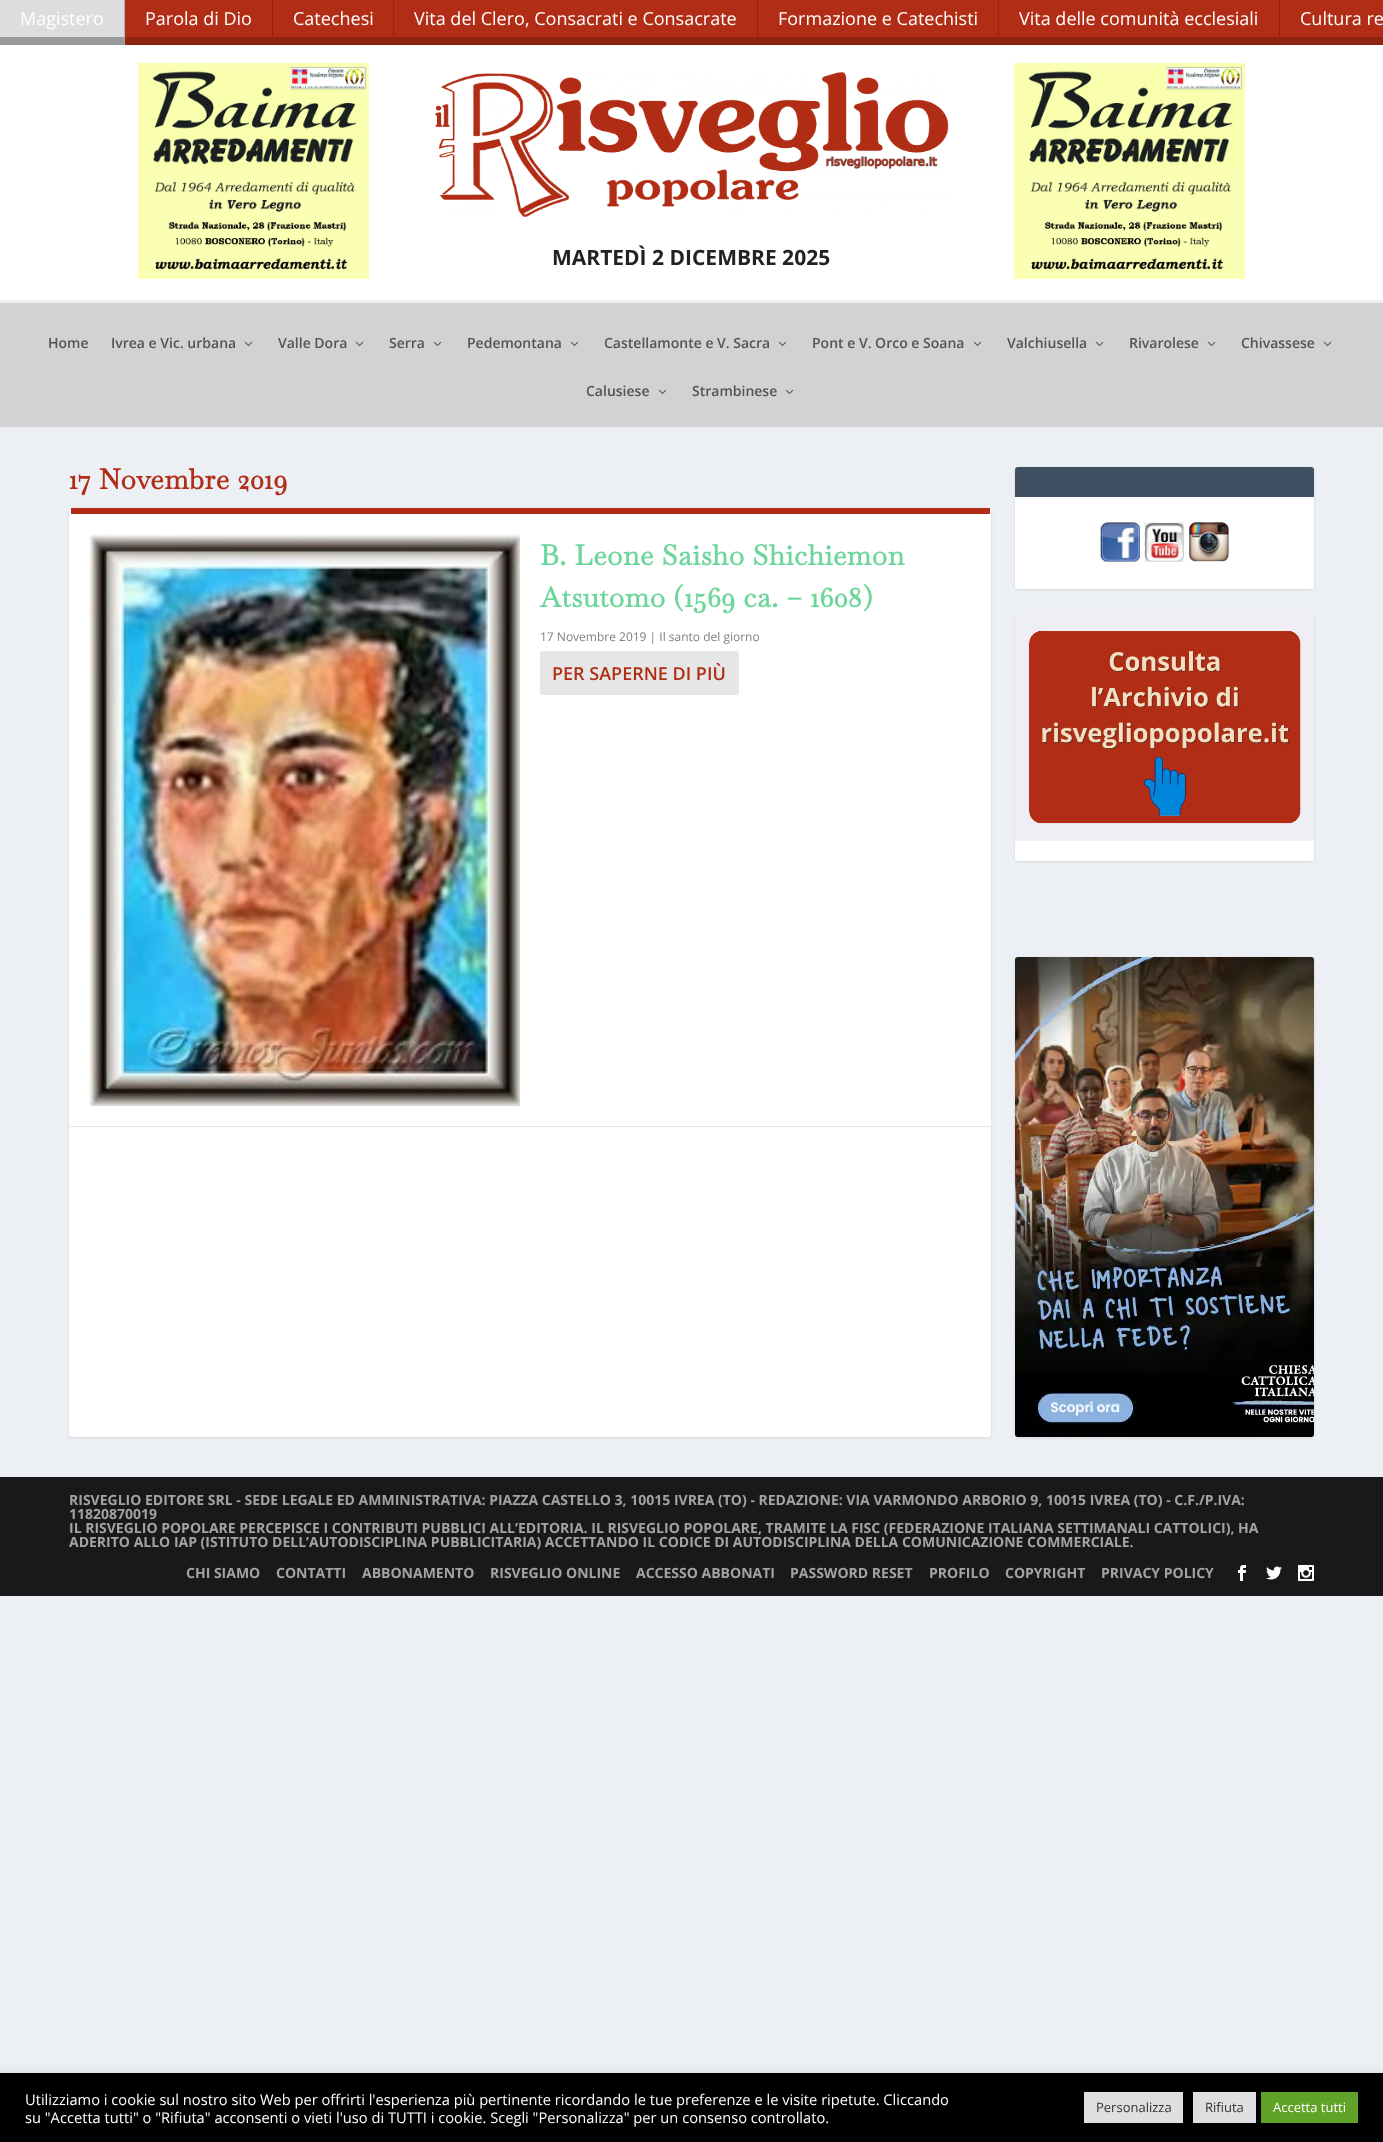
async function draw(canvas) {
  canvas.width = 1383;
  canvas.height = 2142;
  const ctx = canvas.getContext('2d');
  ctx.miterLimit = 4;
  ctx.fontKerning = 'normal';
  function label(s, x, y, font, color) {
    ctx.font = font;
    ctx.fillStyle = color;
    ctx.fillText(s, x, y);
  }
  function rect(x, y, w, h, color) {
    ctx.fillStyle = color;
    ctx.fillRect(x, y, w, h);
  }
  function roundedRect(x, y, w, h, r, color) {
    ctx.fillStyle = color;
    ctx.beginPath();
    ctx.roundRect(x, y, w, h, r);
    ctx.fill();
  }
  async function image(src, x, y, w, h) {
    const img = new Image();
    img.src = src;
    await img.decode();
    ctx.drawImage(img, x, y, w, h);
  }
  let path;

  rect(0, 0, 1383, 2142, '#ecf0f5');
  rect(125, 0, 1258, 45, '#b12d15');
  rect(0, 0, 125, 45, '#ddd');
  ctx.fillStyle = '#b1b1b1';
  path = new Path2D('M125 0V45L124 37V0Z');
  ctx.fill(path);
  ctx.fillStyle = '#0000004d';
  path = new Path2D('M125 45H0V37H124Z');
  ctx.fill(path);
  label('Magistero', 20, 25, '18px Open Sans', '#fff');
  ctx.fillStyle = '#8e2411';
  path = new Path2D('M273 0V45L272 37V0Z');
  ctx.fill(path);
  ctx.fillStyle = '#00000033';
  path = new Path2D('M273 45H125V37H272Z');
  ctx.fill(path);
  label('Parola di Dio', 145, 25, '18px Open Sans', '#fff');
  ctx.fillStyle = '#8e2411';
  path = new Path2D('M394 0V45L393 37V0Z');
  ctx.fill(path);
  ctx.fillStyle = '#00000033';
  path = new Path2D('M394 45H273V37H393Z');
  ctx.fill(path);
  label('Catechesi', 293, 25, '18px Open Sans', '#fff');
  ctx.fillStyle = '#8e2411';
  path = new Path2D('M758 0V45L757 37V0Z');
  ctx.fill(path);
  ctx.fillStyle = '#00000033';
  path = new Path2D('M758 45H394V37H757Z');
  ctx.fill(path);
  label('Vita del Clero, Consacrati e Consacrate', 414, 25, '18px Open Sans', '#fff');
  ctx.fillStyle = '#8e2411';
  path = new Path2D('M999 0V45L998 37V0Z');
  ctx.fill(path);
  ctx.fillStyle = '#00000033';
  path = new Path2D('M999 45H758V37H998Z');
  ctx.fill(path);
  label('Formazione e Catechisti', 778, 25, '18px Open Sans', '#fff');
  ctx.fillStyle = '#8e2411';
  path = new Path2D('M1280 0V45L1279 37V0Z');
  ctx.fill(path);
  ctx.fillStyle = '#00000033';
  path = new Path2D('M1280 45H999V37H1279Z');
  ctx.fill(path);
  label('Vita delle comunità ecclesiali', 1019, 25, '18px Open Sans', '#fff');
  ctx.fillStyle = '#8e2411';
  path = new Path2D('M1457 45H1280V37H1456Z');
  ctx.fill(path);
  label('Cultura re', 1300, 25, '18px Open Sans', '#fff');
  rect(0, 45, 1383, 255, '#fff');
  await image('assets/img1.png', 138, 63, 231, 216);
  await image('assets/img2.png', 435, 72, 514, 145);
  label('MARTEDÌ 2 DICEMBRE 2025', 552, 265, 'bold 21px Open Sans', '#222');
  await image('assets/img1.png', 1014, 63, 231, 216);
  rect(0, 303, 1383, 124, '#d2d2d2');
  label('Home', 48, 348, '600 14px Open Sans', '#545454');
  label('Ivrea e Vic. urbana', 111, 348, '600 14px Open Sans', '#545454');
  await image('assets/img3.png', 244, 341, 9, 5);
  label('Valle Dora', 278, 348, '600 14px Open Sans', '#545454');
  await image('assets/img3.png', 355, 341, 9, 5);
  label('Serra', 389, 348, '600 14px Open Sans', '#545454');
  await image('assets/img3.png', 433, 341, 9, 5);
  label('Pedemontana', 467, 348, '600 14px Open Sans', '#545454');
  await image('assets/img3.png', 570, 341, 9, 5);
  label('Castellamonte e V. Sacra', 604, 348, '600 14px Open Sans', '#545454');
  await image('assets/img3.png', 778, 341, 9, 5);
  label('Pont e V. Orco e Soana', 812, 348, '600 14px Open Sans', '#545454');
  await image('assets/img3.png', 973, 341, 9, 5);
  label('Valchiusella', 1007, 348, '600 14px Open Sans', '#545454');
  await image('assets/img3.png', 1095, 341, 9, 5);
  label('Rivarolese', 1129, 348, '600 14px Open Sans', '#545454');
  await image('assets/img3.png', 1207, 341, 9, 5);
  label('Chivassese', 1241, 348, '600 14px Open Sans', '#545454');
  await image('assets/img3.png', 1323, 341, 9, 5);
  label('Calusiese', 586, 396, '600 14px Open Sans', '#545454');
  await image('assets/img3.png', 658, 389, 9, 5);
  label('Strambinese', 692, 396, '600 14px Open Sans', '#545454');
  await image('assets/img3.png', 785, 389, 9, 5);
  ctx.letterSpacing = '0.5px';
  label('17 Novembre 2019', 69, 489, 'bold 28px Baskervville', '#b12d15');
  ctx.fillStyle = '#0000001a';
  ctx.filter = 'blur(1.5px)';
  ctx.beginPath();
  ctx.roundRect(69, 509, 922, 929, 3);
  ctx.fill();
  ctx.filter = 'none';
  roundedRect(69, 508, 922, 929, 3, '#fff');
  rect(71, 508, 919, 6, '#b12d15');
  rect(69, 1126, 922, 1, '#e6e6e6');
  await image('assets/img4.png', 89, 534, 431, 572);
  label('B. Leone Saisho Shichiemon', 540, 565, 'bold 28px Baskervville', '#6dd69c');
  label('Atsutomo (1569 ca. – 1608)', 540, 607, 'bold 28px Baskervville', '#6dd69c');
  ctx.letterSpacing = '0px';
  label('17 Novembre 2019 | Il santo del giorno', 540, 641, '12px Open Sans', '#808080');
  roundedRect(540, 651, 199, 44, 3, '#e6e6e6');
  label('PER SAPERNE DI PIÙ', 552, 680, '600 18px Open Sans', '#b12d15');
  ctx.fillStyle = '#0000001a';
  ctx.filter = 'blur(1.5px)';
  ctx.beginPath();
  ctx.roundRect(1015, 468, 299, 122, 3);
  ctx.fill();
  ctx.filter = 'none';
  roundedRect(1015, 467, 299, 122, 3, '#fff');
  ctx.fillStyle = '#3e5062';
  ctx.beginPath();
  ctx.roundRect(1015, 467, 299, 30, [3, 3, 0, 0]);
  ctx.fill();
  await image('assets/img5.png', 1100, 522, 40, 40);
  await image('assets/img6.png', 1144, 522, 40, 40);
  await image('assets/img7.png', 1189, 522, 40, 40);
  ctx.fillStyle = '#0000001a';
  ctx.filter = 'blur(1.5px)';
  ctx.beginPath();
  ctx.roundRect(1015, 614, 299, 248, 3);
  ctx.fill();
  ctx.filter = 'none';
  roundedRect(1015, 613, 299, 248, 3, '#fff');
  await image('assets/img8.png', 1015, 613, 299, 228);
  ctx.fillStyle = '#0000001a';
  ctx.filter = 'blur(1.5px)';
  ctx.beginPath();
  ctx.roundRect(1015, 958, 299, 480, 3);
  ctx.fill();
  ctx.filter = 'none';
  await image('assets/img9.png', 1015, 957, 299, 480);
  rect(0, 1477, 1383, 119, '#191919');
  label('RISVEGLIO EDITORE SRL - SEDE LEGALE ED AMMINISTRATIVA: PIAZZA CASTELLO 3, 10015 IVREA (TO) - REDAZIONE: VIA VARMONDO ARBORIO 9, 10015 IVREA (TO) - C.F./P.IVA:', 69, 1505, 'bold 14px Open Sans', '#a3a3a3');
  label('11820870019', 69, 1519, 'bold 14px Open Sans', '#a3a3a3');
  label('IL RISVEGLIO POPOLARE PERCEPISCE I CONTRIBUTI PUBBLICI ALL’EDITORIA. IL RISVEGLIO POPOLARE, TRAMITE LA FISC (FEDERAZIONE ITALIANA SETTIMANALI CATTOLICI), HA', 69, 1533, 'bold 14px Open Sans', '#a3a3a3');
  label('ADERITO ALLO IAP (ISTITUTO DELL’AUTODISCIPLINA PUBBLICITARIA) ACCETTANDO IL CODICE DI AUTODISCIPLINA DELLA COMUNICAZIONE COMMERCIALE.', 69, 1547, 'bold 14px Open Sans', '#a3a3a3');
  label('CHI SIAMO', 186, 1578, 'bold 14px Open Sans', '#a3a3a3');
  label('CONTATTI', 276, 1578, 'bold 14px Open Sans', '#a3a3a3');
  label('ABBONAMENTO', 362, 1578, 'bold 14px Open Sans', '#a3a3a3');
  label('RISVEGLIO ONLINE', 490, 1578, 'bold 14px Open Sans', '#a3a3a3');
  label('ACCESSO ABBONATI', 636, 1578, 'bold 14px Open Sans', '#a3a3a3');
  label('PASSWORD RESET', 790, 1578, 'bold 14px Open Sans', '#a3a3a3');
  label('PROFILO', 929, 1578, 'bold 14px Open Sans', '#a3a3a3');
  label('COPYRIGHT', 1005, 1578, 'bold 14px Open Sans', '#a3a3a3');
  label('PRIVACY POLICY', 1101, 1578, 'bold 14px Open Sans', '#a3a3a3');
  await image('assets/img10.png', 1238, 1565, 8, 16);
  await image('assets/img11.png', 1266, 1566, 16, 14);
  await image('assets/img12.png', 1298, 1565, 16, 16);
  ctx.fillStyle = '#acabab4d';
  ctx.filter = 'blur(5px)';
  ctx.beginPath();
  ctx.rect(0, 2072, 1383, 69);
  ctx.fill();
  ctx.filter = 'none';
  rect(0, 2073, 1383, 69, '#000');
  label('Utilizziamo i cookie sul nostro sito Web per offrirti l\'esperienza più pertinente ricordando le tue preferenze e le visite ripetute. Cliccando', 25, 2105, '14.67px Open Sans', '#fff');
  label('su "Accetta tutti" o "Rifiuta" acconsenti o vieti l\'uso di TUTTI i cookie. Scegli "Personalizza" per un consenso controllato.', 25, 2123, '14.67px Open Sans', '#fff');
  rect(1084, 2092, 99, 31, '#dedfe0');
  label('Personalizza', 1096, 2112, '13px Open Sans', '#333');
  rect(1193, 2092, 63, 31, '#dedfe0');
  label('Rifiuta', 1205, 2112, '13px Open Sans', '#333');
  rect(1261, 2092, 97, 31, '#61a229');
  label('Accetta tutti', 1273, 2112, '13px Open Sans', '#fff');
}

draw(document.querySelector('canvas'));
